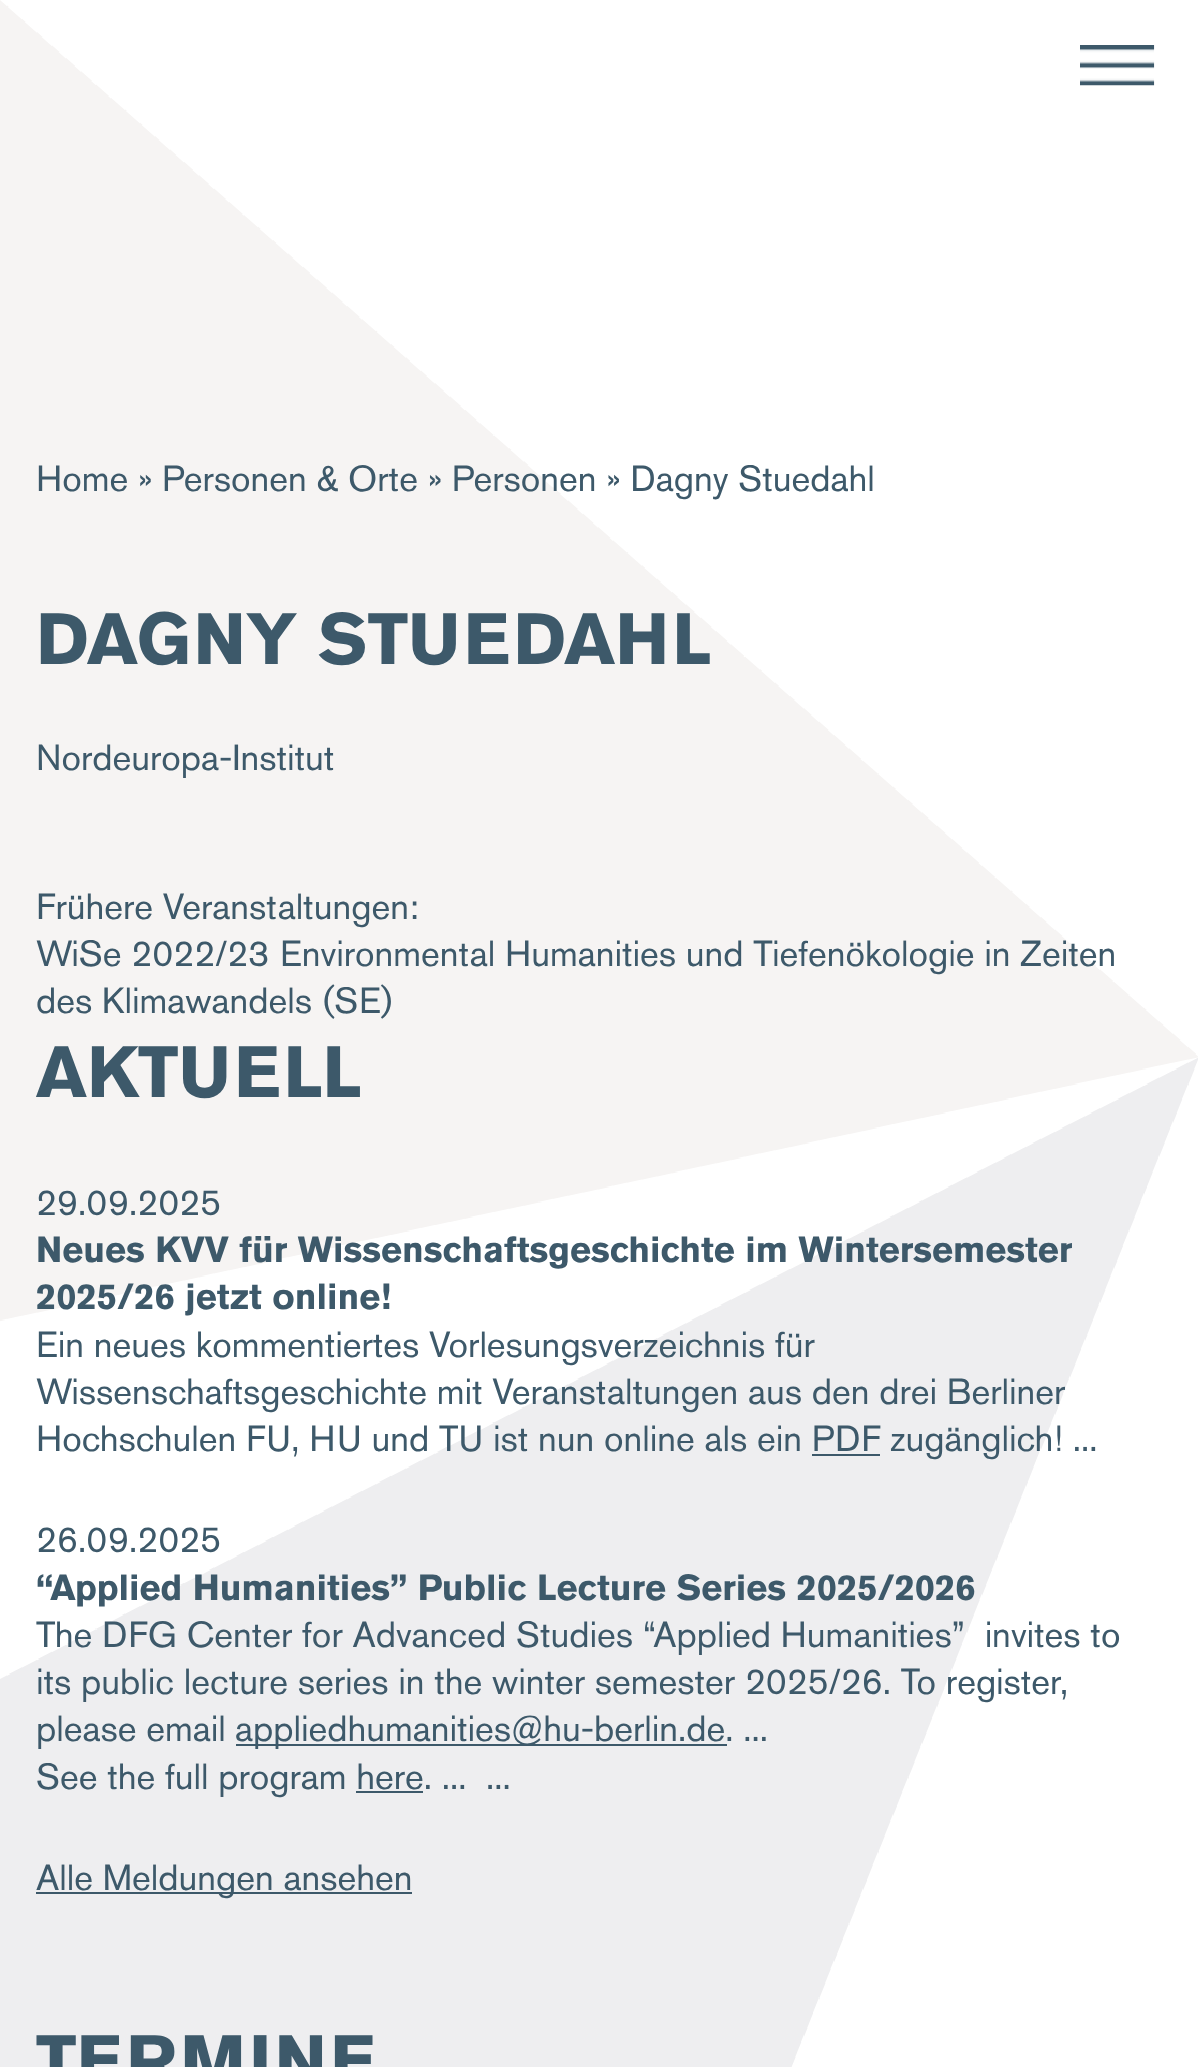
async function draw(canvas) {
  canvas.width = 1198;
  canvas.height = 2067;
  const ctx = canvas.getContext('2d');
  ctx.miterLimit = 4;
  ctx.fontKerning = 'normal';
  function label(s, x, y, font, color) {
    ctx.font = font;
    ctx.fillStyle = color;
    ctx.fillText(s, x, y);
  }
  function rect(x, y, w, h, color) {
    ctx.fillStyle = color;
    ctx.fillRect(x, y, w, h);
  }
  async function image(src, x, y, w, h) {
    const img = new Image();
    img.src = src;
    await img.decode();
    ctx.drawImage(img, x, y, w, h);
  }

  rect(0, 0, 1198, 2067, '#fff');
  await image('assets/img1.png', 0, 0, 1198, 2067);
  await image('assets/img2.png', 1080, 45, 75, 41);
  label('Home » Personen & Orte » Personen » Dagny Stuedahl', 36, 491, '36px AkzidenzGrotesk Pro', '#3d596a');
  label('DAGNY STUEDAHL', 36, 664, 'bold 72px AkzidenzGrotesk Pro', '#3d596a');
  label('Nordeuropa-Institut', 36, 770, '36px AkzidenzGrotesk Pro', '#3d596a');
  label('Frühere Veranstaltungen:', 36, 919, '36px AkzidenzGrotesk Pro', '#3d596a');
  label('WiSe 2022/23', 36, 966, '36px AkzidenzGrotesk Pro', '#3d596a');
  label('Environmental Humanities und Tiefenökologie in Zeiten', 280, 966, '36px AkzidenzGrotesk Pro', '#3d596a');
  label('des Klimawandels', 36, 1013, '36px AkzidenzGrotesk Pro', '#3d596a');
  label('(SE)', 323, 1013, '36px AkzidenzGrotesk Pro', '#3d596a');
  label('AKTUELL', 36, 1097, 'bold 72px AkzidenzGrotesk Pro', '#3d596a');
  label('29.09.2025', 36, 1215, '36px AkzidenzGrotesk Pro', '#3d596a');
  label('Neues KVV für Wissenschaftsgeschichte im Wintersemester', 36, 1262, 'bold 36px AkzidenzGrotesk Pro', '#3d596a');
  label('2025/26 jetzt online!', 36, 1309, 'bold 36px AkzidenzGrotesk Pro', '#3d596a');
  label('Ein neues kommentiertes Vorlesungsverzeichnis für', 36, 1357, '36px AkzidenzGrotesk Pro', '#3d596a');
  label('Wissenschaftsgeschichte mit Veranstaltungen aus den drei Berliner', 36, 1404, '36px AkzidenzGrotesk Pro', '#3d596a');
  label('Hochschulen FU, HU und TU ist nun online als ein PDF zugänglich! ...', 36, 1451, '36px AkzidenzGrotesk Pro', '#3d596a');
  rect(812, 1454, 68, 2, '#3d596a');
  label('26.09.2025', 36, 1552, '36px AkzidenzGrotesk Pro', '#3d596a');
  label('“Applied Humanities” Public Lecture Series 2025/2026', 36, 1600, 'bold 36px AkzidenzGrotesk Pro', '#3d596a');
  label('The DFG Center for Advanced Studies “Applied Humanities”  invites to', 36, 1647, '36px AkzidenzGrotesk Pro', '#3d596a');
  label('its public lecture series in the winter semester 2025/26. To register,', 36, 1694, '36px AkzidenzGrotesk Pro', '#3d596a');
  label('please email', 36, 1741, '36px AkzidenzGrotesk Pro', '#3d596a');
  rect(236, 1744, 491, 2, '#3d596a');
  label('appliedhumanities@hu-berlin.de. ...', 235, 1741, '36px AkzidenzGrotesk Pro', '#3d596a');
  label('See the full program here. ...', 36, 1789, '36px AkzidenzGrotesk Pro', '#3d596a');
  rect(356, 1791, 67, 2, '#3d596a');
  label('...', 486, 1789, '36px AkzidenzGrotesk Pro', '#3d596a');
  rect(36, 1892, 376, 2, '#3d596a');
  label('Alle Meldungen ansehen', 36, 1890, '36px AkzidenzGrotesk Pro', '#3d596a');
  label('TERMINE', 36, 2086, 'bold 72px AkzidenzGrotesk Pro', '#3d596a');
}

draw(document.querySelector('canvas'));
